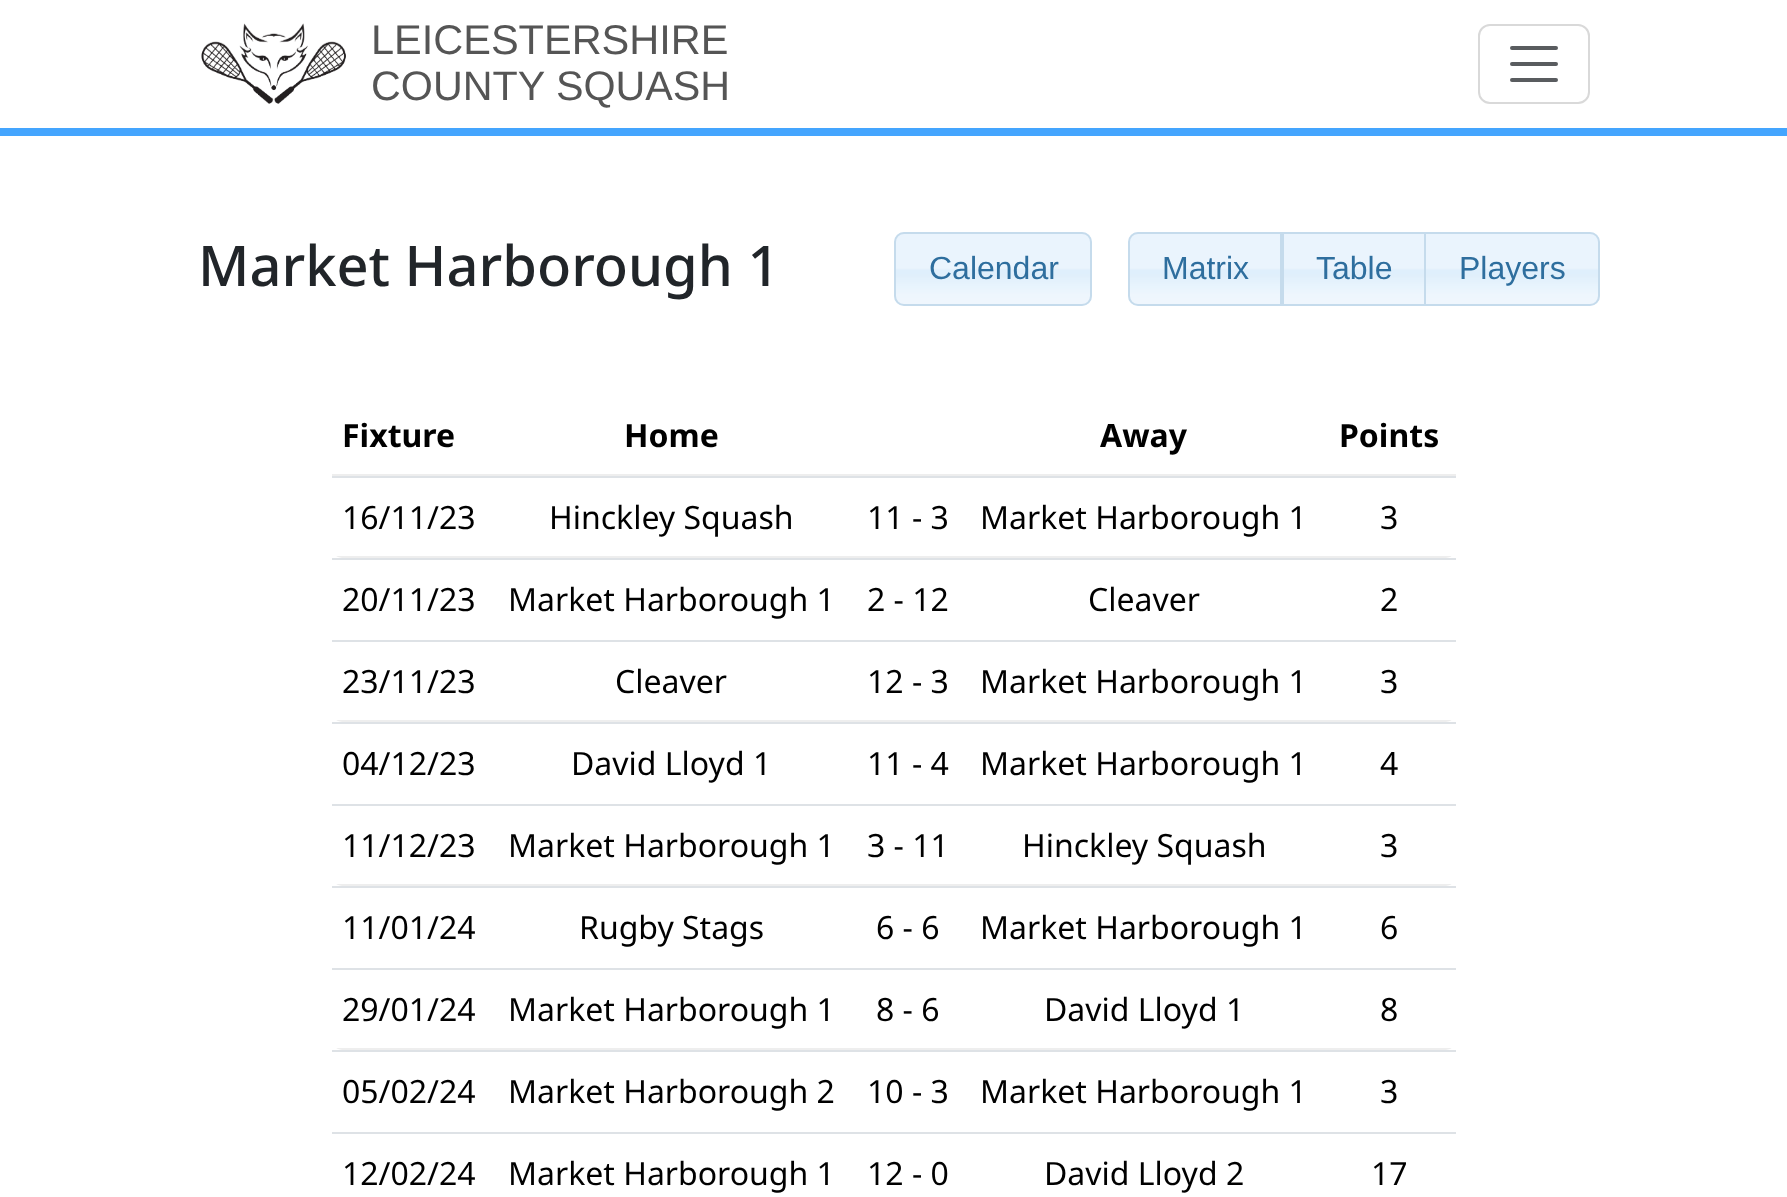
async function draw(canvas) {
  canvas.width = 1787;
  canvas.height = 1197;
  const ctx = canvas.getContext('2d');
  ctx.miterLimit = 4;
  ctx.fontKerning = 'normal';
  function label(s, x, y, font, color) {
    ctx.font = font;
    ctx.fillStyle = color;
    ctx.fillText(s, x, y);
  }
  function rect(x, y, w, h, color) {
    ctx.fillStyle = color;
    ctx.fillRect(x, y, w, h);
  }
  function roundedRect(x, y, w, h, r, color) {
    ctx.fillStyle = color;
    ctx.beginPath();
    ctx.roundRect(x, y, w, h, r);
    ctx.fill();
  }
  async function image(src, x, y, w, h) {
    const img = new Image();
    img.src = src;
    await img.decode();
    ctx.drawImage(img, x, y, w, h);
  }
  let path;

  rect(0, 0, 1787, 1197, '#fff');
  rect(0, 128, 1787, 8, '#44a5fe');
  await image('assets/img1.png', 201, 23, 145, 81);
  label('LEICESTERSHIRE', 371, 54, '41.5px Liberation Sans', '#555');
  label('COUNTY SQUASH', 371, 100, '41.25px Liberation Sans', '#555');
  ctx.beginPath();
  ctx.roundRect(1479, 25, 110, 78, 11);
  ctx.strokeStyle = '#d9d9d9';
  ctx.lineWidth = 2;
  ctx.stroke();
  path = new Path2D('M1512 48H1556M1512 64H1556M1512 80H1556');
  ctx.strokeStyle = '#595c5f';
  ctx.lineWidth = 4;
  ctx.lineCap = 'round';
  ctx.stroke(path);
  label('Market Harborough 1', 198, 286, '500 56px Noto Sans', '#212529');
  await image('assets/img2.png', 894, 232, 198, 74);
  ctx.beginPath();
  ctx.roundRect(895, 233, 196, 72, 9);
  ctx.strokeStyle = '#c5dbec';
  ctx.lineWidth = 2;
  ctx.stroke();
  label('Calendar', 929, 279, '32px Liberation Sans', '#2e6e9e');
  await image('assets/img3.png', 1128, 232, 152, 74);
  ctx.beginPath();
  ctx.roundRect(1129, 233, 152, 72, [9, 0, 0, 9]);
  ctx.stroke();
  label('Matrix', 1162, 279, '32px Liberation Sans', '#2e6e9e');
  await image('assets/img4.png', 1284, 234, 140, 70);
  ctx.strokeRect(1283, 233, 142, 72);
  label('Table', 1316, 279, '32px Liberation Sans', '#2e6e9e');
  await image('assets/img5.png', 1426, 232, 174, 74);
  ctx.beginPath();
  ctx.roundRect(1425, 233, 174, 72, [0, 9, 9, 0]);
  ctx.stroke();
  label('Players', 1459, 279, '32px Liberation Sans', '#2e6e9e');
  rect(332, 474, 1124, 2, '#eee');
  label('Fixture', 342, 447, 'bold 32px Noto Sans', '#000');
  label('Home', 624, 447, 'bold 32px Noto Sans', '#000');
  label('Away', 1100, 447, 'bold 32px Noto Sans', '#000');
  roundedRect(332, 476, 1124, 82, 10, '#eee');
  rect(332, 476, 1124, 2, '#dee2e6');
  label('Points', 1339, 447, 'bold 32px Noto Sans', '#000');
  rect(332, 478, 1124, 78, '#fff');
  label('16/11/23', 342, 529, '32px Noto Sans', '#000');
  label('Hinckley Squash', 549, 529, '32px Noto Sans', '#000');
  label('11 - 3', 867, 529, '32px Noto Sans', '#000');
  label('Market Harborough 1', 980, 529, '32px Noto Sans', '#000');
  rect(332, 558, 1124, 2, '#dee2e6');
  label('3', 1380, 529, '32px Noto Sans', '#000');
  label('20/11/23', 342, 611, '32px Noto Sans', '#000');
  label('Market Harborough 1', 508, 611, '32px Noto Sans', '#000');
  label('2 - 12', 867, 611, '32px Noto Sans', '#000');
  label('Cleaver', 1088, 611, '32px Noto Sans', '#000');
  roundedRect(332, 640, 1124, 82, 10, '#eee');
  rect(332, 640, 1124, 2, '#dee2e6');
  label('2', 1380, 611, '32px Noto Sans', '#000');
  rect(332, 642, 1124, 78, '#fff');
  label('23/11/23', 342, 693, '32px Noto Sans', '#000');
  label('Cleaver', 615, 693, '32px Noto Sans', '#000');
  label('12 - 3', 867, 693, '32px Noto Sans', '#000');
  label('Market Harborough 1', 980, 693, '32px Noto Sans', '#000');
  rect(332, 722, 1124, 2, '#dee2e6');
  label('3', 1380, 693, '32px Noto Sans', '#000');
  label('04/12/23', 342, 775, '32px Noto Sans', '#000');
  label('David Lloyd 1', 571, 775, '32px Noto Sans', '#000');
  label('11 - 4', 867, 775, '32px Noto Sans', '#000');
  label('Market Harborough 1', 980, 775, '32px Noto Sans', '#000');
  roundedRect(332, 804, 1124, 82, 10, '#eee');
  rect(332, 804, 1124, 2, '#dee2e6');
  label('4', 1380, 775, '32px Noto Sans', '#000');
  rect(332, 806, 1124, 78, '#fff');
  label('11/12/23', 342, 857, '32px Noto Sans', '#000');
  label('Market Harborough 1', 508, 857, '32px Noto Sans', '#000');
  label('3 - 11', 867, 857, '32px Noto Sans', '#000');
  label('Hinckley Squash', 1022, 857, '32px Noto Sans', '#000');
  rect(332, 886, 1124, 2, '#dee2e6');
  label('3', 1380, 857, '32px Noto Sans', '#000');
  label('11/01/24', 342, 939, '32px Noto Sans', '#000');
  label('Rugby Stags', 579, 939, '32px Noto Sans', '#000');
  label('6 - 6', 876, 939, '32px Noto Sans', '#000');
  label('Market Harborough 1', 980, 939, '32px Noto Sans', '#000');
  roundedRect(332, 968, 1124, 82, 10, '#eee');
  rect(332, 968, 1124, 2, '#dee2e6');
  label('6', 1380, 939, '32px Noto Sans', '#000');
  rect(332, 970, 1124, 78, '#fff');
  label('29/01/24', 342, 1021, '32px Noto Sans', '#000');
  label('Market Harborough 1', 508, 1021, '32px Noto Sans', '#000');
  label('8 - 6', 876, 1021, '32px Noto Sans', '#000');
  label('David Lloyd 1', 1044, 1021, '32px Noto Sans', '#000');
  rect(332, 1050, 1124, 2, '#dee2e6');
  label('8', 1380, 1021, '32px Noto Sans', '#000');
  label('05/02/24', 342, 1103, '32px Noto Sans', '#000');
  label('Market Harborough 2', 508, 1103, '32px Noto Sans', '#000');
  label('10 - 3', 867, 1103, '32px Noto Sans', '#000');
  label('Market Harborough 1', 980, 1103, '32px Noto Sans', '#000');
  rect(332, 1132, 1124, 2, '#dee2e6');
  label('3', 1380, 1103, '32px Noto Sans', '#000');
  label('12/02/24', 342, 1185, '32px Noto Sans', '#000');
  label('Market Harborough 1', 508, 1185, '32px Noto Sans', '#000');
  label('12 - 0', 867, 1185, '32px Noto Sans', '#000');
  label('David Lloyd 2', 1044, 1185, '32px Noto Sans', '#000');
  label('17', 1371, 1185, '32px Noto Sans', '#000');
}

draw(document.querySelector('canvas'));
